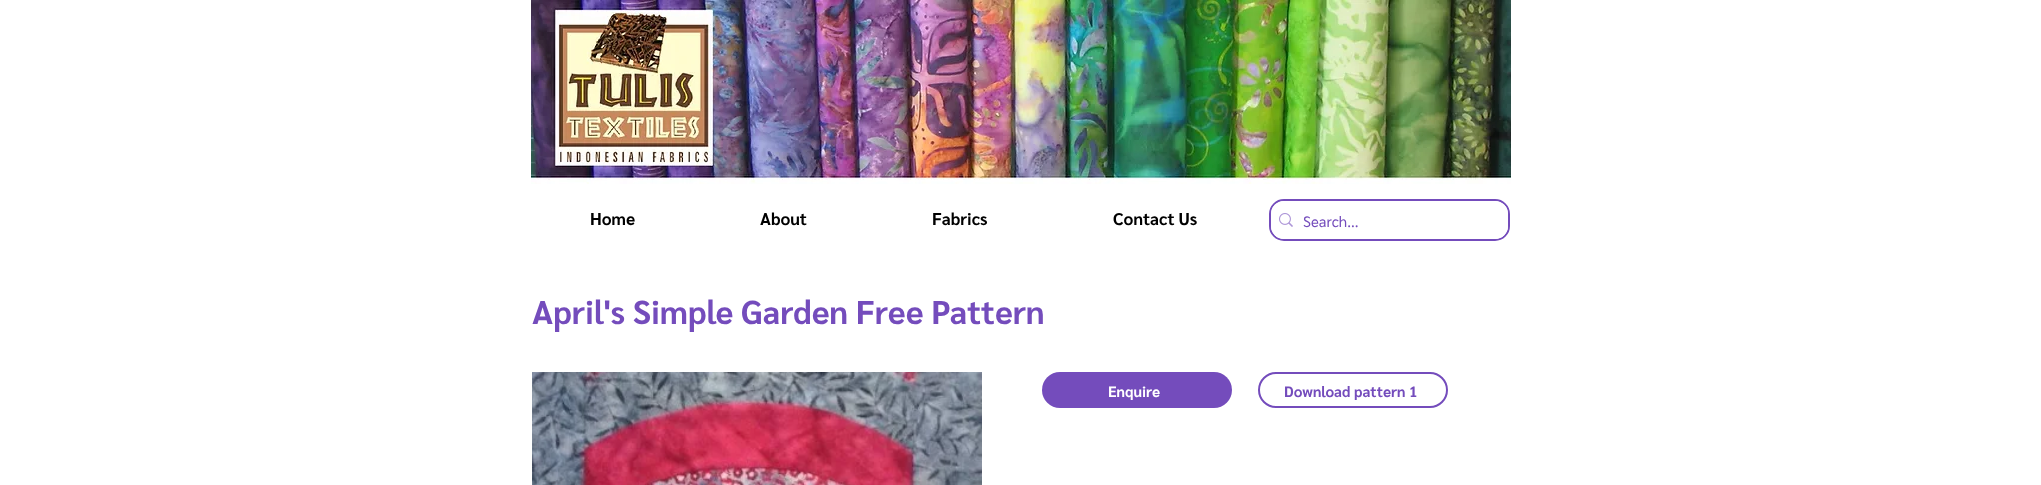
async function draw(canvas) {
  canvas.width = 2041;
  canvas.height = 485;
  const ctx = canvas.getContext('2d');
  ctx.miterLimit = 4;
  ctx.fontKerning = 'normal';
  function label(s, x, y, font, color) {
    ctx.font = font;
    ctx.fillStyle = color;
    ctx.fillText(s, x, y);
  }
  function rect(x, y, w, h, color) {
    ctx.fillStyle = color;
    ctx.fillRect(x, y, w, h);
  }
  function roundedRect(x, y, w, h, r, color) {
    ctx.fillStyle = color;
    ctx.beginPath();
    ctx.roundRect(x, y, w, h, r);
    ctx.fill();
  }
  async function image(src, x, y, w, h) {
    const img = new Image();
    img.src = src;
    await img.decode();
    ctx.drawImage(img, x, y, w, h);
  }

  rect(0, 0, 2041, 485, '#fff');
  await image('assets/img1.png', 531, 0, 980, 184);
  label('Home', 590, 225, 'bold 17px Sarabun', '#000');
  label('About', 760, 225, 'bold 17px Sarabun', '#000');
  label('Fabrics', 932, 225, 'bold 17px Sarabun', '#000');
  label('Contact Us', 1113, 225, 'bold 17px Sarabun', '#000');
  ctx.beginPath();
  ctx.roundRect(1270, 200, 239, 40, 14);
  ctx.strokeStyle = '#744cbc';
  ctx.lineWidth = 2;
  ctx.stroke();
  roundedRect(1271, 201, 237, 38, 13, '#fff');
  await image('assets/img2.png', 1279, 213, 14, 14);
  label('Search...', 1303, 227, '15px Sarabun', '#744cbc');
  label('April\'s Simple Garden Free Pattern', 532, 324, 'bold 33px Sarabun', '#744cbc');
  await image('assets/img3.png', 532, 372, 450, 113);
  roundedRect(1042, 372, 190, 36, 18, '#744cbc');
  ctx.save();
  ctx.beginPath();
  ctx.rect(1108, 381, 53, 19);
  ctx.clip();
  label('Enquire', 1108, 397, 'bold 15px Sarabun', '#fff');
  ctx.restore();
  ctx.beginPath();
  ctx.roundRect(1259, 373, 188, 34, 17);
  ctx.stroke();
  ctx.save();
  ctx.beginPath();
  ctx.rect(1284, 381, 133, 19);
  ctx.clip();
  label('Download pattern 1', 1284, 397, 'bold 15px Sarabun', '#744cbc');
  ctx.restore();
}

draw(document.querySelector('canvas'));
